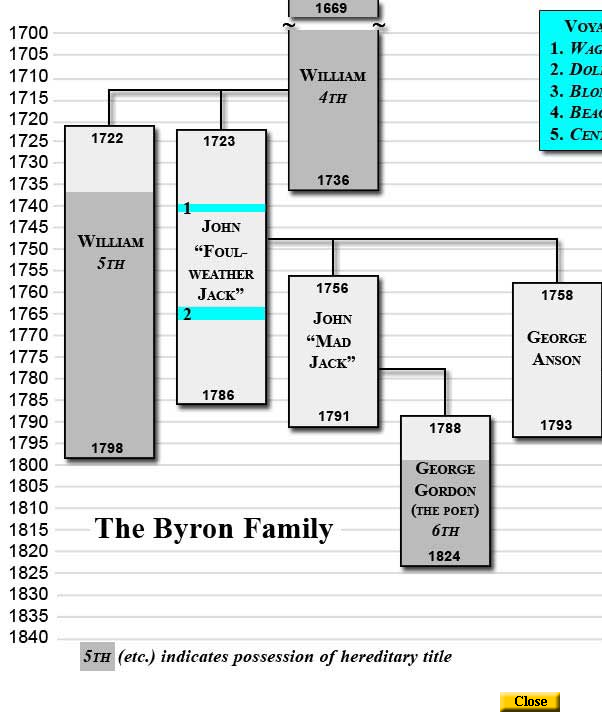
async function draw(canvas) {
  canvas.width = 602;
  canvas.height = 714;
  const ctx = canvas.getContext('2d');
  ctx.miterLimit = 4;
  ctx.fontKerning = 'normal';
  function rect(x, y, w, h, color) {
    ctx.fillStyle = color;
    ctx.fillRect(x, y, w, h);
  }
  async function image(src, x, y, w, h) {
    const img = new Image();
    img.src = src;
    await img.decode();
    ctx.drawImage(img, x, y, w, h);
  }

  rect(0, 0, 602, 714, '#fff');
  await image('assets/img1.png', 8, 0, 594, 672);
  await image('assets/img2.png', 500, 692, 60, 20);
}

draw(document.querySelector('canvas'));
